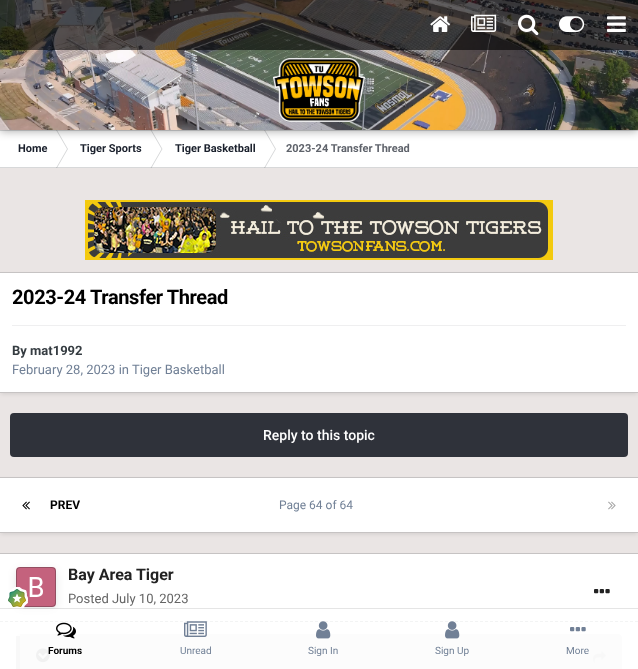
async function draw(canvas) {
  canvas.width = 638;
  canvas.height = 669;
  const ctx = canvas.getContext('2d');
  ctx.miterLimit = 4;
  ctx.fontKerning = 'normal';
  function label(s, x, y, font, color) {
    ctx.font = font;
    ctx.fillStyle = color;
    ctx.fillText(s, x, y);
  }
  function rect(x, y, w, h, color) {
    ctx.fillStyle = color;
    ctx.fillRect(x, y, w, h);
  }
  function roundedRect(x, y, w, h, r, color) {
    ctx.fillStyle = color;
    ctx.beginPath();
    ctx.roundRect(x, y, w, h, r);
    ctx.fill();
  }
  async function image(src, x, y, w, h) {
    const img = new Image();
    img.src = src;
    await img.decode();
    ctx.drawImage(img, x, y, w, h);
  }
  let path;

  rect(0, 0, 638, 669, '#eae5e4');
  rect(0, 130, 638, 38, '#fff');
  ctx.fillStyle = '#d7d8d9';
  path = new Path2D('M56 130H57L68 149H67ZM56 168H57L68 149H67Z');
  ctx.fill(path);
  path = new Path2D('M150.5 130H151.5L162.5 149H161.5ZM150.5 168H151.5L162.5 149H161.5Z');
  ctx.fill(path);
  path = new Path2D('M264 130H265L276 149H275ZM264 168H265L276 149H275Z');
  ctx.fill(path);
  rect(0, 130, 638, 1, '#353c4133');
  ctx.fillStyle = '#00000059';
  ctx.filter = 'blur(5px)';
  ctx.beginPath();
  ctx.rect(0, 1, 638, 130);
  ctx.fill();
  ctx.filter = 'none';
  await image('assets/img1.png', 0, 0, 638, 130);
  rect(0, 0, 638, 50, '#00000099');
  await image('assets/img2.png', 430, 16, 21, 16);
  await image('assets/img3.png', 471, 14, 26, 18);
  await image('assets/img4.png', 518, 14, 21, 22);
  await image('assets/img5.png', 559, 16, 26, 16);
  await image('assets/img6.png', 607, 16, 19, 16);
  await image('assets/img7.png', 273, 58, 92, 64);
  rect(0, 167, 638, 1, '#353c4133');
  label('Home', 18, 152, 'bold 11px Roboto', '#1a202c');
  label('Tiger Sports', 80, 152, 'bold 11px Roboto', '#1a202c');
  label('Tiger Basketball', 175, 152, 'bold 11px Roboto', '#1a202c');
  label('2023-24 Transfer Thread', 286, 152, 'bold 11px Roboto', '#5f636b');
  await image('assets/img8.png', 85, 200, 468, 60);
  ctx.fillStyle = '#0000001a';
  ctx.filter = 'blur(2px)';
  ctx.beginPath();
  ctx.rect(1, 275, 636, 119);
  ctx.fill();
  ctx.filter = 'none';
  rect(0, 273, 638, 119, '#fff');
  rect(0, 272, 638, 1, '#c6c3c3');
  rect(0, 392, 638, 1, '#c6c3c3');
  ctx.letterSpacing = '-0.4px';
  label('2023-24 Transfer Thread', 12, 304, 'bold 20px Roboto', '#000');
  rect(12, 325, 614, 1, '#efeff0');
  ctx.letterSpacing = '0px';
  label('By mat1992', 12, 355, 'bold 13px Roboto', '#353c41');
  label('February 28, 2023 in Tiger Basketball', 12, 374, '13px Roboto', '#718096');
  roundedRect(10, 413, 618, 44, 4, '#2f323a');
  label('Reply to this topic', 263, 440, '500 14px Roboto', '#fff');
  ctx.fillStyle = '#0000001a';
  ctx.filter = 'blur(2px)';
  ctx.beginPath();
  ctx.rect(1, 480, 636, 54);
  ctx.fill();
  ctx.filter = 'none';
  rect(0, 478, 638, 54, '#fff');
  rect(0, 477, 638, 1, '#c6c3c3');
  rect(0, 532, 638, 1, '#c6c3c3');
  await image('assets/img9.png', 22, 501, 8, 9);
  label('PREV', 50, 509, 'bold 12px Roboto', '#000');
  label('Page 64 of 64', 279, 509, '12px Roboto', '#718096');
  await image('assets/img10.png', 608, 501, 8, 9);
  rect(0, 554, 638, 115, '#fff');
  rect(0, 553, 638, 1, '#c6c3c3');
  path = new Path2D('M0 621.5H638');
  ctx.strokeStyle = '#c2c5c6';
  ctx.setLineDash([3, 2]);
  ctx.stroke(path);
  await image('assets/img11.png', 16, 567, 40, 40);
  ctx.save();
  path = new Path2D('M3 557H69V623H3ZM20 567H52C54 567 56 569 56 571V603C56 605 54 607 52 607H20C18 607 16 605 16 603V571C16 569 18 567 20 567Z');
  ctx.clip(path, 'evenodd');
  ctx.fillStyle = '#0000001a';
  ctx.filter = 'blur(4px)';
  ctx.beginPath();
  ctx.roundRect(16, 570, 40, 40, 4);
  ctx.fill();
  ctx.filter = 'none';
  ctx.restore();
  ctx.beginPath();
  ctx.roundRect(16.5, 567.5, 39, 39, 3.5);
  ctx.strokeStyle = '#2222224d';
  ctx.setLineDash([]);
  ctx.stroke();
  await image('assets/img12.png', 8, 587, 20, 22);
  label('Bay Area Tiger', 68, 580, 'bold 16px Roboto', '#222');
  label('Posted July 10, 2023', 68, 603, '13px Roboto', '#646464');
  await image('assets/img13.png', 594, 589, 16, 5);
  roundedRect(16, 634, 606, 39, 4, '#f7f7f7');
  rect(16, 636, 4, 33, '#2d374826');
  ctx.fillStyle = '#eeefef';
  path = new Path2D('M20 634H618C620 634 622 636 622 638V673H20Z');
  ctx.fill(path);
  await image('assets/img14.png', 36, 648, 14, 15);
  await image('assets/img15.png', 593, 651, 13, 12);
  rect(0, 608, 638, 1, '#0000001a');
  rect(0, 609, 638, 60, '#ffffffcc');
  await image('assets/img16.png', 56, 622, 20, 17);
  label('Forums', 48, 654, 'bold 10px Roboto', '#000');
  await image('assets/img17.png', 184, 621, 23, 16);
  label('Unread', 180, 654, '10px Roboto', '#718096');
  await image('assets/img18.png', 316, 621, 15, 18);
  label('Sign In', 308, 654, '10px Roboto', '#718096');
  await image('assets/img19.png', 445, 621, 15, 18);
  label('Sign Up', 435, 654, '10px Roboto', '#718096');
  await image('assets/img20.png', 570, 627, 16, 5);
  label('More', 566, 654, '10px Roboto', '#718096');
}

draw(document.querySelector('canvas'));
